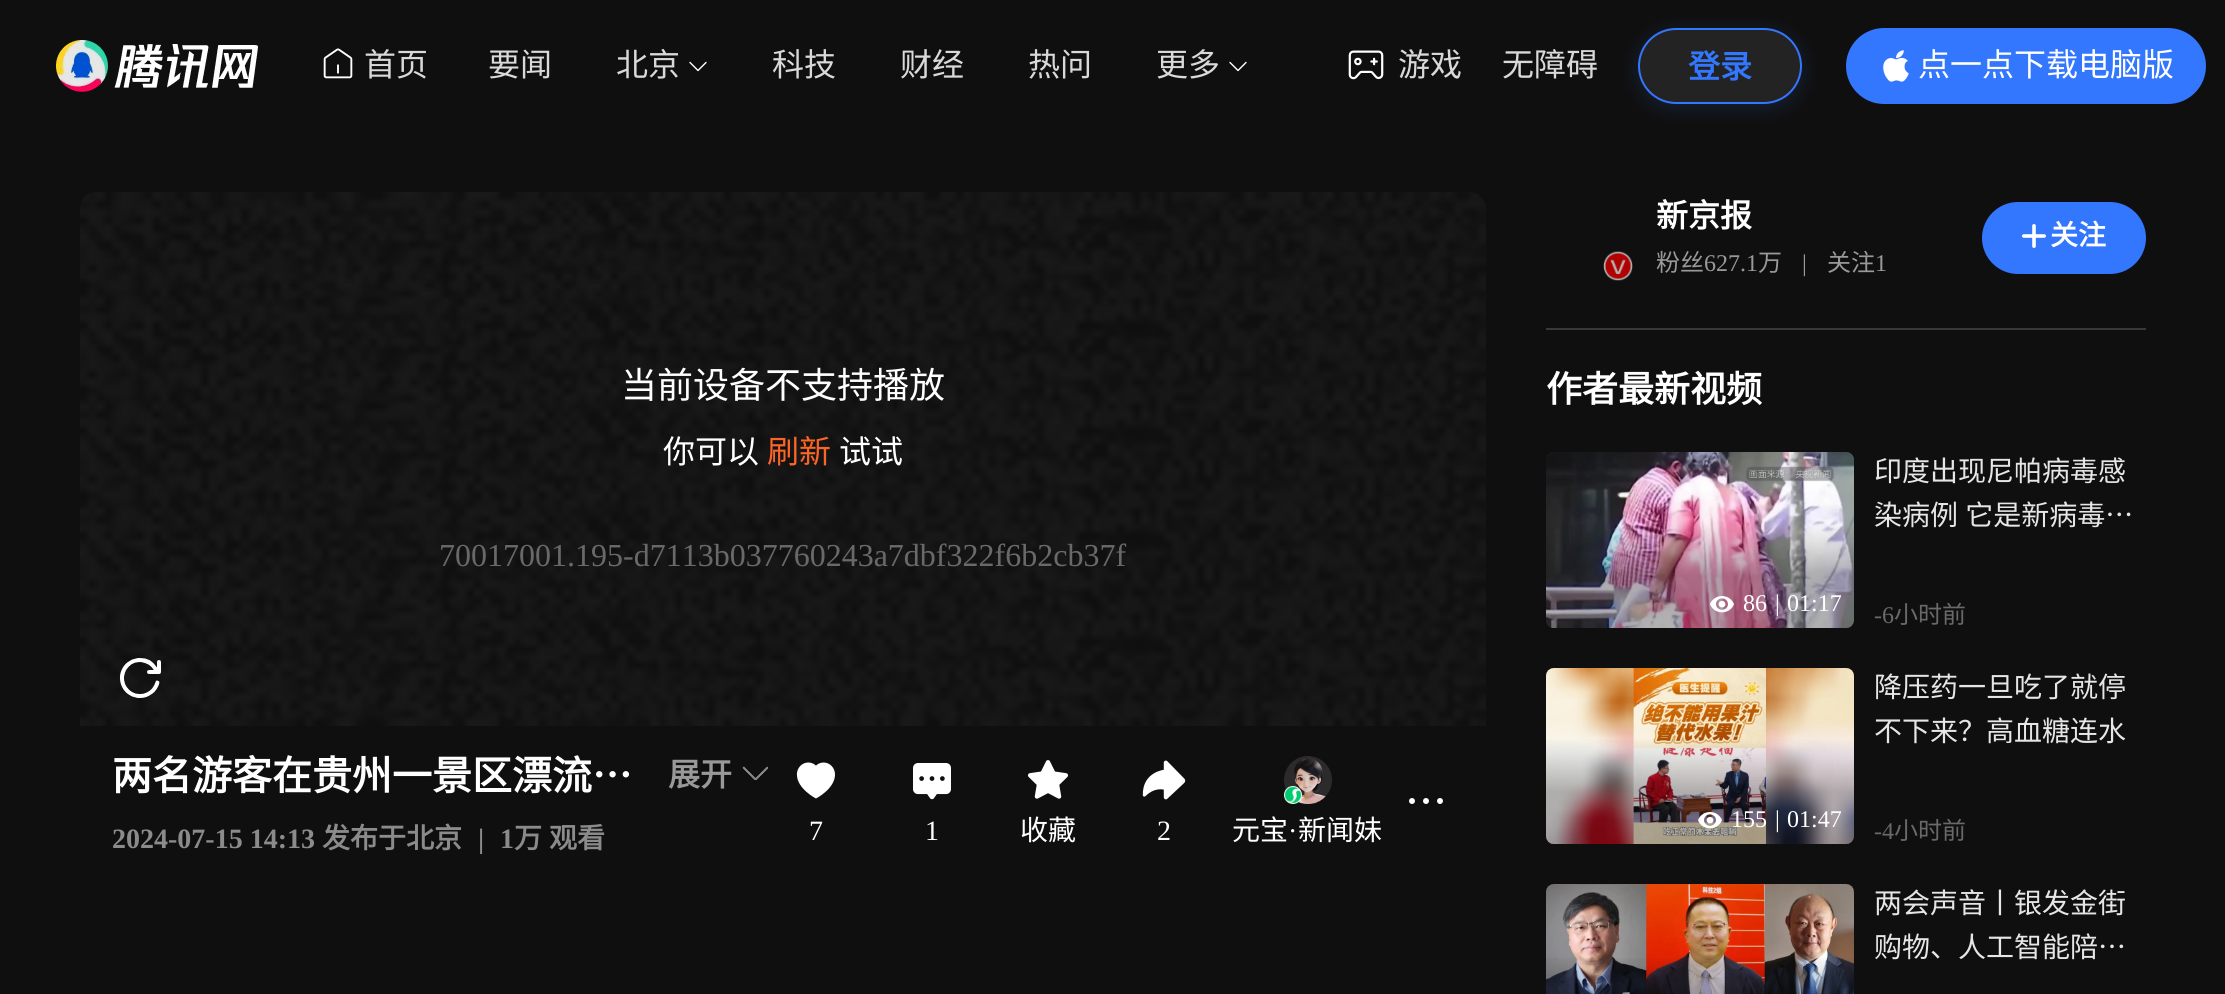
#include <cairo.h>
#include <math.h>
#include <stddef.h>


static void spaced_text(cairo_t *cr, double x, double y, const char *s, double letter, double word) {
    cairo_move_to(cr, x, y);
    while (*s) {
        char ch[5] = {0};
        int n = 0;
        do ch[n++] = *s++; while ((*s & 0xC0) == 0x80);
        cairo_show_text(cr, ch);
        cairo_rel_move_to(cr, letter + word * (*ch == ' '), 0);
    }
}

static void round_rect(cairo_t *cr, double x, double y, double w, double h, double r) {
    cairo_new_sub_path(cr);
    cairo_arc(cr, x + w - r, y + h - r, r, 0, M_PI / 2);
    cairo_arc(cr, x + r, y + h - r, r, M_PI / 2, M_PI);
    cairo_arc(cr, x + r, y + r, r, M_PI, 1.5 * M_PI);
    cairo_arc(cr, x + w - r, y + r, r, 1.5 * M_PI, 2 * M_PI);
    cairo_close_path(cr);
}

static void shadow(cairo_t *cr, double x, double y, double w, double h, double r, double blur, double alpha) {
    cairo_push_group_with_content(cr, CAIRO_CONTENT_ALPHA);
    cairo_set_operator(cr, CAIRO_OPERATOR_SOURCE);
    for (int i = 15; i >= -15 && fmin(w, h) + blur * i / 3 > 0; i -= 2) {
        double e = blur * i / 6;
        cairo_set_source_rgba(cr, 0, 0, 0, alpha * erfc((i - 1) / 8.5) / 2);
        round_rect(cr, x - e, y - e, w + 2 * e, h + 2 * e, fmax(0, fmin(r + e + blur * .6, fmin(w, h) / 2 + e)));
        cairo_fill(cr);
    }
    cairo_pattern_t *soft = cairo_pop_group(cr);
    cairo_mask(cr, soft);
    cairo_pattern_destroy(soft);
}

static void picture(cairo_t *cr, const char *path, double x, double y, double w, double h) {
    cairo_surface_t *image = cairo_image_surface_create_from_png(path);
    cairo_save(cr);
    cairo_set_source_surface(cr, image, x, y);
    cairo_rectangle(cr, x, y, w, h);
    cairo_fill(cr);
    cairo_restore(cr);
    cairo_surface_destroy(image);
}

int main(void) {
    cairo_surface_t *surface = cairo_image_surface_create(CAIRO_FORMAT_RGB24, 2225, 994);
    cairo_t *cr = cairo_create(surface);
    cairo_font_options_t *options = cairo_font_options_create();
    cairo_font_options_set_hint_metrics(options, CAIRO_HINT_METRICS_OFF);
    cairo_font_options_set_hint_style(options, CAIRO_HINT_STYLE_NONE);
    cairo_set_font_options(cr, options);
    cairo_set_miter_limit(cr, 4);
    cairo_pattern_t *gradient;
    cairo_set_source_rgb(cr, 0.059, 0.059, 0.059);
    cairo_paint(cr);
    picture(cr, "img1.png", 56, 40, 202, 52);
    picture(cr, "img2.png", 323, 48, 30, 31);
    cairo_select_font_face(cr, "Noto Sans CJK SC", CAIRO_FONT_SLANT_NORMAL, CAIRO_FONT_WEIGHT_NORMAL);
    cairo_set_font_size(cr, 32);
    cairo_set_source_rgb(cr, 0.851, 0.851, 0.851);
    cairo_move_to(cr, 364, 76);
    cairo_show_text(cr, "首页");
    cairo_move_to(cr, 488, 76);
    cairo_show_text(cr, "要闻");
    cairo_move_to(cr, 616, 76);
    cairo_show_text(cr, "北京");
    cairo_new_path(cr);
    cairo_move_to(cr, 706, 62.5);
    cairo_line_to(cr, 698, 70.5);
    cairo_line_to(cr, 690, 62.5);
    cairo_set_source_rgb(cr, 1, 1, 1);
    cairo_set_line_width(cr, 1.4);
    cairo_set_line_cap(cr, CAIRO_LINE_CAP_ROUND);
    cairo_set_line_join(cr, CAIRO_LINE_JOIN_ROUND);
    cairo_stroke(cr);
    cairo_set_source_rgb(cr, 0.851, 0.851, 0.851);
    cairo_move_to(cr, 772, 76);
    cairo_show_text(cr, "科技");
    cairo_move_to(cr, 900, 76);
    cairo_show_text(cr, "财经");
    cairo_move_to(cr, 1028, 76);
    cairo_show_text(cr, "热问");
    cairo_move_to(cr, 1156, 76);
    cairo_show_text(cr, "更多");
    cairo_new_path(cr);
    cairo_move_to(cr, 1246, 62.5);
    cairo_line_to(cr, 1238, 70.5);
    cairo_line_to(cr, 1230, 62.5);
    cairo_set_source_rgb(cr, 1, 1, 1);
    cairo_stroke(cr);
    picture(cr, "img3.png", 1348, 50, 36, 30);
    cairo_set_source_rgb(cr, 0.851, 0.851, 0.851);
    cairo_move_to(cr, 1398, 76);
    cairo_show_text(cr, "游戏");
    cairo_move_to(cr, 1502, 76);
    cairo_show_text(cr, "无障碍");
    cairo_save(cr);
    cairo_set_fill_rule(cr, CAIRO_FILL_RULE_EVEN_ODD);
    cairo_new_path(cr);
    cairo_move_to(cr, 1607, 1);
    cairo_line_to(cr, 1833, 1);
    cairo_line_to(cr, 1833, 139);
    cairo_line_to(cr, 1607, 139);
    cairo_close_path(cr);
    cairo_move_to(cr, 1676, 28);
    cairo_line_to(cr, 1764, 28);
    cairo_curve_to(cr, 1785, 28, 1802, 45, 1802, 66);
    cairo_curve_to(cr, 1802, 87, 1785, 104, 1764, 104);
    cairo_line_to(cr, 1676, 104);
    cairo_curve_to(cr, 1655, 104, 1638, 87, 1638, 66);
    cairo_curve_to(cr, 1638, 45, 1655, 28, 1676, 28);
    cairo_close_path(cr);
    cairo_clip(cr);
    cairo_set_source_rgb(cr, 0.2, 0.467, 1);
    shadow(cr, 1638, 32, 164, 76, 38, 10, 0.16);
    cairo_restore(cr);
    cairo_set_source_rgba(cr, 0.851, 0.851, 0.851, 0.1);
    round_rect(cr, 1639, 29, 162, 74, 37);
    cairo_fill_preserve(cr);
    cairo_set_source_rgb(cr, 0.2, 0.467, 1);
    cairo_set_line_width(cr, 2);
    cairo_set_line_cap(cr, CAIRO_LINE_CAP_BUTT);
    cairo_set_line_join(cr, CAIRO_LINE_JOIN_MITER);
    cairo_stroke(cr);
    cairo_select_font_face(cr, "Noto Sans CJK SC", CAIRO_FONT_SLANT_NORMAL, CAIRO_FONT_WEIGHT_BOLD);
    cairo_move_to(cr, 1688, 78);
    cairo_show_text(cr, "登录");
    round_rect(cr, 1846, 28, 360, 76, 38);
    cairo_fill(cr);
    picture(cr, "img4.png", 1883, 50, 26, 32);
    cairo_select_font_face(cr, "Noto Sans CJK SC", CAIRO_FONT_SLANT_NORMAL, CAIRO_FONT_WEIGHT_NORMAL);
    cairo_set_source_rgb(cr, 1, 1, 1);
    cairo_move_to(cr, 1918, 76);
    cairo_show_text(cr, "点一点下载电脑版");
    picture(cr, "img5.png", 80, 192, 1406, 534);
    cairo_set_font_size(cr, 36);
    cairo_move_to(cr, 621, 398);
    cairo_show_text(cr, "当前设备不支持播放");
    cairo_set_font_size(cr, 32);
    cairo_move_to(cr, 663, 463);
    cairo_show_text(cr, "你可以");
    cairo_set_source_rgb(cr, 0.988, 0.396, 0.149);
    cairo_move_to(cr, 767, 463);
    cairo_show_text(cr, "刷新");
    cairo_set_source_rgb(cr, 1, 1, 1);
    cairo_move_to(cr, 839, 463);
    cairo_show_text(cr, "试试");
    cairo_select_font_face(cr, "Liberation Serif", CAIRO_FONT_SLANT_NORMAL, CAIRO_FONT_WEIGHT_NORMAL);
    cairo_set_source_rgb(cr, 0.412, 0.412, 0.412);
    cairo_move_to(cr, 439, 566);
    cairo_show_text(cr, "70017001.195-d7113b037760243a7dbf322f6b2cb37f");
    cairo_select_font_face(cr, "Noto Sans CJK SC", CAIRO_FONT_SLANT_NORMAL, CAIRO_FONT_WEIGHT_BOLD);
    cairo_set_font_size(cr, 40);
    cairo_set_source_rgb(cr, 1, 1, 1);
    cairo_move_to(cr, 112, 790);
    cairo_show_text(cr, "两名游客在贵州一景区漂流…");
    cairo_set_font_size(cr, 32);
    cairo_set_source_rgb(cr, 0.6, 0.6, 0.6);
    cairo_move_to(cr, 668, 786);
    cairo_show_text(cr, "展开");
    picture(cr, "img6.png", 742, 766, 26, 14);
    cairo_select_font_face(cr, "Liberation Serif", CAIRO_FONT_SLANT_NORMAL, CAIRO_FONT_WEIGHT_BOLD);
    cairo_set_font_size(cr, 28);
    cairo_set_source_rgb(cr, 0.545, 0.545, 0.545);
    cairo_move_to(cr, 112, 848);
    cairo_show_text(cr, "2024-07-15 14:13");
    cairo_select_font_face(cr, "Noto Sans CJK SC", CAIRO_FONT_SLANT_NORMAL, CAIRO_FONT_WEIGHT_BOLD);
    cairo_move_to(cr, 322, 848);
    cairo_show_text(cr, "发布于北京");
    cairo_select_font_face(cr, "Liberation Serif", CAIRO_FONT_SLANT_NORMAL, CAIRO_FONT_WEIGHT_BOLD);
    cairo_move_to(cr, 478, 848);
    cairo_show_text(cr, "|");
    cairo_move_to(cr, 500, 848);
    cairo_show_text(cr, "1");
    cairo_select_font_face(cr, "Noto Sans CJK SC", CAIRO_FONT_SLANT_NORMAL, CAIRO_FONT_WEIGHT_BOLD);
    cairo_move_to(cr, 514, 848);
    cairo_show_text(cr, "万");
    cairo_move_to(cr, 549, 848);
    cairo_show_text(cr, "观看");
    picture(cr, "img7.png", 1409, 798, 34, 6);
    picture(cr, "img8.png", 796, 762, 39, 37);
    cairo_select_font_face(cr, "Liberation Serif", CAIRO_FONT_SLANT_NORMAL, CAIRO_FONT_WEIGHT_NORMAL);
    cairo_set_source_rgb(cr, 1, 1, 1);
    cairo_move_to(cr, 809, 840);
    cairo_show_text(cr, "7");
    picture(cr, "img9.png", 913, 763, 38, 37);
    cairo_move_to(cr, 925, 840);
    cairo_show_text(cr, "1");
    picture(cr, "img10.png", 1027, 760, 42, 39);
    cairo_select_font_face(cr, "Noto Sans CJK SC", CAIRO_FONT_SLANT_NORMAL, CAIRO_FONT_WEIGHT_NORMAL);
    cairo_move_to(cr, 1020, 840);
    cairo_show_text(cr, "收藏");
    picture(cr, "img11.png", 1142, 760, 44, 40);
    cairo_select_font_face(cr, "Liberation Serif", CAIRO_FONT_SLANT_NORMAL, CAIRO_FONT_WEIGHT_NORMAL);
    cairo_move_to(cr, 1157, 840);
    cairo_show_text(cr, "2");
    picture(cr, "img12.png", 1284, 756, 48, 48);
    picture(cr, "img13.png", 1284, 786, 18, 18);
    cairo_select_font_face(cr, "Noto Sans CJK SC", CAIRO_FONT_SLANT_NORMAL, CAIRO_FONT_WEIGHT_NORMAL);
    cairo_move_to(cr, 1232, 840);
    cairo_show_text(cr, "元宝");
    cairo_select_font_face(cr, "Liberation Serif", CAIRO_FONT_SLANT_NORMAL, CAIRO_FONT_WEIGHT_NORMAL);
    cairo_move_to(cr, 1288, 840);
    cairo_show_text(cr, "·");
    cairo_select_font_face(cr, "Noto Sans CJK SC", CAIRO_FONT_SLANT_NORMAL, CAIRO_FONT_WEIGHT_NORMAL);
    cairo_move_to(cr, 1298, 840);
    cairo_show_text(cr, "新闻妹");
    cairo_select_font_face(cr, "Noto Sans CJK SC", CAIRO_FONT_SLANT_NORMAL, CAIRO_FONT_WEIGHT_BOLD);
    cairo_set_font_size(cr, 32);
    cairo_move_to(cr, 1656, 227);
    cairo_show_text(cr, "新京报");
    cairo_select_font_face(cr, "Noto Sans CJK SC", CAIRO_FONT_SLANT_NORMAL, CAIRO_FONT_WEIGHT_NORMAL);
    cairo_set_font_size(cr, 24);
    cairo_set_source_rgb(cr, 0.6, 0.6, 0.6);
    cairo_move_to(cr, 1656, 271);
    cairo_show_text(cr, "粉丝");
    cairo_select_font_face(cr, "Liberation Serif", CAIRO_FONT_SLANT_NORMAL, CAIRO_FONT_WEIGHT_NORMAL);
    cairo_move_to(cr, 1704, 271);
    cairo_show_text(cr, "627.1");
    cairo_select_font_face(cr, "Noto Sans CJK SC", CAIRO_FONT_SLANT_NORMAL, CAIRO_FONT_WEIGHT_NORMAL);
    cairo_move_to(cr, 1758, 271);
    cairo_show_text(cr, "万");
    cairo_select_font_face(cr, "Liberation Serif", CAIRO_FONT_SLANT_NORMAL, CAIRO_FONT_WEIGHT_NORMAL);
    cairo_move_to(cr, 1802, 271);
    cairo_show_text(cr, "|");
    cairo_select_font_face(cr, "Noto Sans CJK SC", CAIRO_FONT_SLANT_NORMAL, CAIRO_FONT_WEIGHT_NORMAL);
    cairo_move_to(cr, 1827, 271);
    cairo_show_text(cr, "关注");
    cairo_select_font_face(cr, "Liberation Serif", CAIRO_FONT_SLANT_NORMAL, CAIRO_FONT_WEIGHT_NORMAL);
    cairo_move_to(cr, 1875, 271);
    cairo_show_text(cr, "1");
    cairo_set_source_rgb(cr, 0.2, 0.467, 1);
    round_rect(cr, 1982, 202, 164, 72, 36);
    cairo_fill(cr);
    picture(cr, "img14.png", 2022, 224, 24, 24);
    cairo_select_font_face(cr, "Noto Sans CJK SC", CAIRO_FONT_SLANT_NORMAL, CAIRO_FONT_WEIGHT_BOLD);
    cairo_set_font_size(cr, 28);
    cairo_set_source_rgb(cr, 1, 1, 1);
    cairo_move_to(cr, 2050, 245);
    cairo_show_text(cr, "关注");
    picture(cr, "img15.png", 1603, 251, 30, 30);
    cairo_set_source_rgb(cr, 0.22, 0.22, 0.22);
    cairo_rectangle(cr, 1546, 328, 600, 2);
    cairo_fill(cr);
    cairo_set_font_size(cr, 36);
    cairo_set_source_rgb(cr, 1, 1, 1);
    cairo_move_to(cr, 1546, 402);
    cairo_show_text(cr, "作者最新视频");
    cairo_set_source_rgb(cr, 0.2, 0.2, 0.2);
    round_rect(cr, 1546, 452, 308, 176, 8);
    cairo_fill(cr);
    picture(cr, "img16.png", 1546, 452, 308, 176);
    gradient = cairo_pattern_create_linear(1700, 628, 1700, 452);
    cairo_pattern_add_color_stop_rgba(gradient, 0.3, 0, 0, 0, 0.3);
    cairo_pattern_add_color_stop_rgba(gradient, 0.6, 0, 0, 0, 0);
    cairo_set_source(cr, gradient);
    cairo_pattern_destroy(gradient);
    round_rect(cr, 1546, 452, 308, 176, 8);
    cairo_fill(cr);
    picture(cr, "img17.png", 1710, 596, 24, 17);
    cairo_select_font_face(cr, "Liberation Serif", CAIRO_FONT_SLANT_NORMAL, CAIRO_FONT_WEIGHT_NORMAL);
    cairo_set_font_size(cr, 24);
    cairo_set_source_rgb(cr, 1, 1, 1);
    cairo_move_to(cr, 1743, 611);
    cairo_show_text(cr, "86");
    cairo_move_to(cr, 1775, 611);
    cairo_show_text(cr, "|");
    cairo_move_to(cr, 1787, 611);
    cairo_show_text(cr, "01:17");
    cairo_select_font_face(cr, "Noto Sans CJK SC", CAIRO_FONT_SLANT_NORMAL, CAIRO_FONT_WEIGHT_NORMAL);
    cairo_set_font_size(cr, 28);
    cairo_set_source_rgb(cr, 0.902, 0.902, 0.902);
    cairo_move_to(cr, 1874, 481);
    cairo_show_text(cr, "印度出现尼帕病毒感");
    spaced_text(cr, 1874, 525, "染病例 它是新病毒…", 0, 1);
    cairo_select_font_face(cr, "Liberation Serif", CAIRO_FONT_SLANT_NORMAL, CAIRO_FONT_WEIGHT_NORMAL);
    cairo_set_font_size(cr, 24);
    cairo_set_source_rgb(cr, 0.412, 0.412, 0.412);
    cairo_move_to(cr, 1874, 623);
    cairo_show_text(cr, "-6");
    cairo_select_font_face(cr, "Noto Sans CJK SC", CAIRO_FONT_SLANT_NORMAL, CAIRO_FONT_WEIGHT_NORMAL);
    cairo_move_to(cr, 1894, 623);
    cairo_show_text(cr, "小时前");
    cairo_set_source_rgb(cr, 0.2, 0.2, 0.2);
    round_rect(cr, 1546, 668, 308, 176, 8);
    cairo_fill(cr);
    picture(cr, "img18.png", 1546, 668, 308, 176);
    gradient = cairo_pattern_create_linear(1700, 844, 1700, 668);
    cairo_pattern_add_color_stop_rgba(gradient, 0.3, 0, 0, 0, 0.3);
    cairo_pattern_add_color_stop_rgba(gradient, 0.6, 0, 0, 0, 0);
    cairo_set_source(cr, gradient);
    cairo_pattern_destroy(gradient);
    round_rect(cr, 1546, 668, 308, 176, 8);
    cairo_fill(cr);
    picture(cr, "img19.png", 1698, 812, 24, 17);
    cairo_select_font_face(cr, "Liberation Serif", CAIRO_FONT_SLANT_NORMAL, CAIRO_FONT_WEIGHT_NORMAL);
    cairo_set_source_rgb(cr, 1, 1, 1);
    cairo_move_to(cr, 1731, 827);
    cairo_show_text(cr, "155");
    cairo_move_to(cr, 1775, 827);
    cairo_show_text(cr, "|");
    cairo_move_to(cr, 1787, 827);
    cairo_show_text(cr, "01:47");
    cairo_select_font_face(cr, "Noto Sans CJK SC", CAIRO_FONT_SLANT_NORMAL, CAIRO_FONT_WEIGHT_NORMAL);
    cairo_set_font_size(cr, 28);
    cairo_set_source_rgb(cr, 0.902, 0.902, 0.902);
    cairo_move_to(cr, 1874, 697);
    cairo_show_text(cr, "降压药一旦吃了就停");
    cairo_move_to(cr, 1874, 741);
    cairo_show_text(cr, "不下来？高血糖连水");
    cairo_select_font_face(cr, "Liberation Serif", CAIRO_FONT_SLANT_NORMAL, CAIRO_FONT_WEIGHT_NORMAL);
    cairo_set_font_size(cr, 24);
    cairo_set_source_rgb(cr, 0.412, 0.412, 0.412);
    cairo_move_to(cr, 1874, 839);
    cairo_show_text(cr, "-4");
    cairo_select_font_face(cr, "Noto Sans CJK SC", CAIRO_FONT_SLANT_NORMAL, CAIRO_FONT_WEIGHT_NORMAL);
    cairo_move_to(cr, 1894, 839);
    cairo_show_text(cr, "小时前");
    picture(cr, "img20.png", 1546, 884, 308, 110);
    gradient = cairo_pattern_create_linear(1700, 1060, 1700, 884);
    cairo_pattern_add_color_stop_rgba(gradient, 0.3, 0, 0, 0, 0.3);
    cairo_pattern_add_color_stop_rgba(gradient, 0.6, 0, 0, 0, 0);
    cairo_set_source(cr, gradient);
    cairo_pattern_destroy(gradient);
    cairo_rectangle(cr, 1546, 958, 308, 36);
    cairo_fill(cr);
    cairo_set_font_size(cr, 28);
    cairo_set_source_rgb(cr, 0.902, 0.902, 0.902);
    cairo_move_to(cr, 1874, 913);
    cairo_show_text(cr, "两会声音丨银发金街");
    cairo_move_to(cr, 1874, 957);
    cairo_show_text(cr, "购物、人工智能陪…");
    cairo_surface_write_to_png(surface, "page.png");
    cairo_font_options_destroy(options);
    cairo_destroy(cr);
    cairo_surface_destroy(surface);
    return 0;
}
